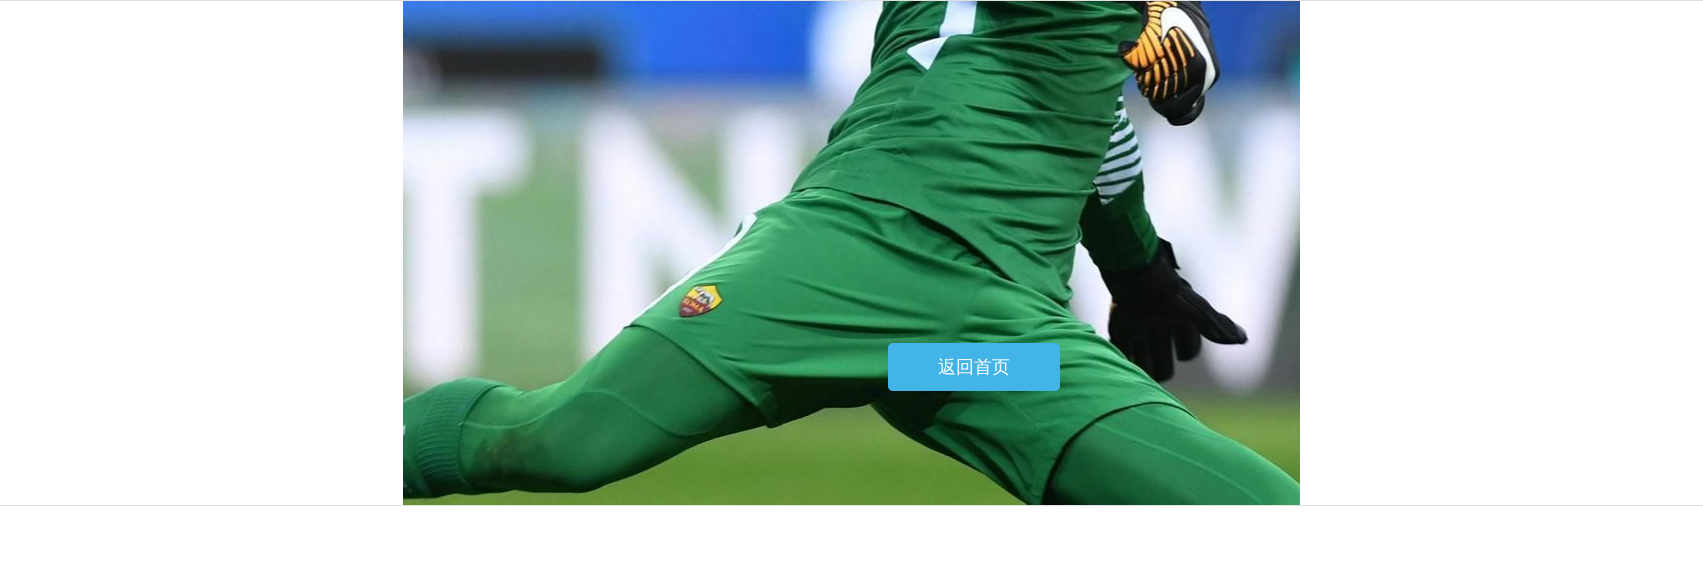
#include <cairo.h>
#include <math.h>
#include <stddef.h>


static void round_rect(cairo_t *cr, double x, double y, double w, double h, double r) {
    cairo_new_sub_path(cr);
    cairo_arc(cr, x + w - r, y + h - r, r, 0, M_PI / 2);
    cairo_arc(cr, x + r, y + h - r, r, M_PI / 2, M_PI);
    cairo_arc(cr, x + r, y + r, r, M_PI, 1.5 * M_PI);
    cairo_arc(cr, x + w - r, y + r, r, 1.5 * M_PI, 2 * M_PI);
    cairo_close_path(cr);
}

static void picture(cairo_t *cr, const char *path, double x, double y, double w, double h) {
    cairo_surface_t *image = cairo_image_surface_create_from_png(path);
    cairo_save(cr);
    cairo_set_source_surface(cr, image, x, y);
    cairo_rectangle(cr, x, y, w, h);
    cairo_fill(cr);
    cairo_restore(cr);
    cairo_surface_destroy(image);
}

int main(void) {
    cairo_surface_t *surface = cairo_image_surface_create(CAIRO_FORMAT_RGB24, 1703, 565);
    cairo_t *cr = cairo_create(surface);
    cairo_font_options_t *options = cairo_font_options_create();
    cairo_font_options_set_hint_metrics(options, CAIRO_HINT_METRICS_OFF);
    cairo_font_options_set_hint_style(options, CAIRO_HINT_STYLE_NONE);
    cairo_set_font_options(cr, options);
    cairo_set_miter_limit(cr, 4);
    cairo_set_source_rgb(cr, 1, 1, 1);
    cairo_paint(cr);
    cairo_set_source_rgb(cr, 0.878, 0.878, 0.878);
    cairo_rectangle(cr, 0, 0, 1703, 1);
    cairo_fill(cr);
    cairo_rectangle(cr, 0, 505, 1703, 1);
    cairo_fill(cr);
    picture(cr, "img1.png", 403, 1, 897, 504);
    cairo_set_source_rgb(cr, 0.263, 0.706, 0.91);
    round_rect(cr, 888, 343, 172, 48, 5);
    cairo_fill(cr);
    cairo_select_font_face(cr, "WenQuanYi Zen Hei Medium", CAIRO_FONT_SLANT_NORMAL, CAIRO_FONT_WEIGHT_NORMAL);
    cairo_set_font_size(cr, 18);
    cairo_set_source_rgb(cr, 1, 1, 1);
    cairo_move_to(cr, 938, 373);
    cairo_show_text(cr, "返回首页");
    cairo_surface_write_to_png(surface, "page.png");
    cairo_font_options_destroy(options);
    cairo_destroy(cr);
    cairo_surface_destroy(surface);
    return 0;
}
